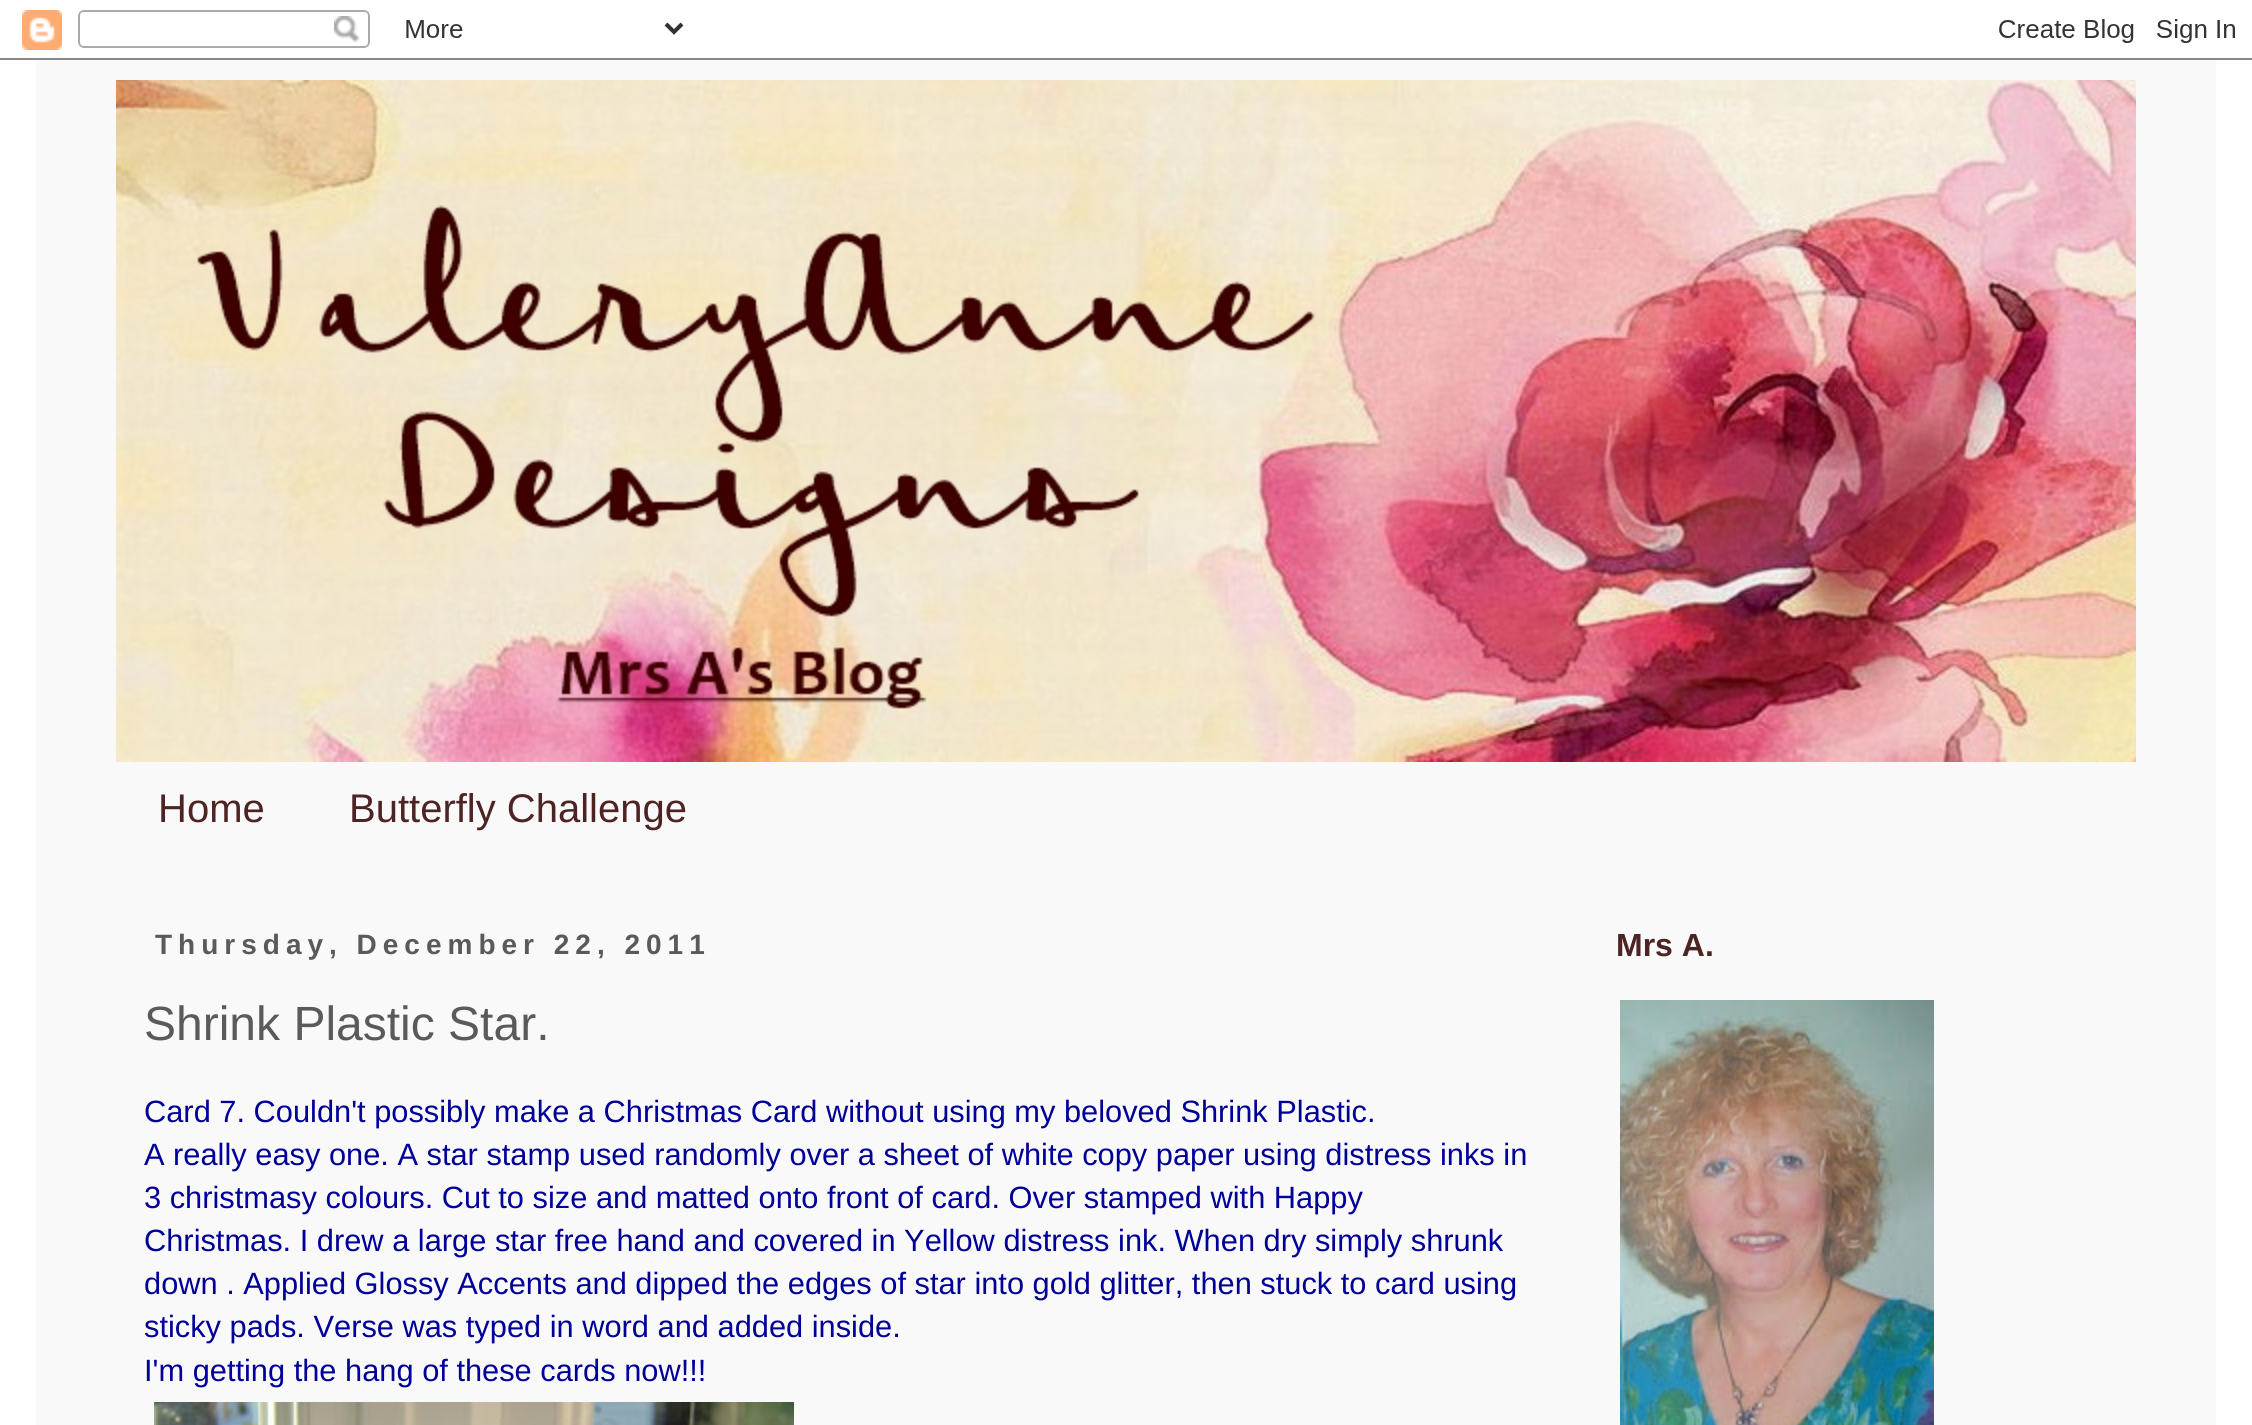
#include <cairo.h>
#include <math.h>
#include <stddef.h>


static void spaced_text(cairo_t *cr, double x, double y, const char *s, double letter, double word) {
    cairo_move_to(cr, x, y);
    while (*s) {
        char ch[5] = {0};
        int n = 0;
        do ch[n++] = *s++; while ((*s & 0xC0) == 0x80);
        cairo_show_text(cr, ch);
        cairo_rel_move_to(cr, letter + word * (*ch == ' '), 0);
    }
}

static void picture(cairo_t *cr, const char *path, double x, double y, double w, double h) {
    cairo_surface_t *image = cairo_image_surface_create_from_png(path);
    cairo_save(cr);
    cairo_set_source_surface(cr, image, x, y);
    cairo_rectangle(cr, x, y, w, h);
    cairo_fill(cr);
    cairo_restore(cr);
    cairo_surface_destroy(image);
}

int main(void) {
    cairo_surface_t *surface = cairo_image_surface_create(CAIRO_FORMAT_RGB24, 2252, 1425);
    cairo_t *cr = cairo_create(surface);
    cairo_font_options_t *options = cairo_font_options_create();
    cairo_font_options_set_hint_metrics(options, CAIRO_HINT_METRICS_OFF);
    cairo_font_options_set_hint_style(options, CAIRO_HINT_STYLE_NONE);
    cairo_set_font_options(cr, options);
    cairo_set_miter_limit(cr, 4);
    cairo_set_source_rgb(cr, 1, 1, 1);
    cairo_paint(cr);
    picture(cr, "img1.png", 0, 10, 2252, 50);
    cairo_set_source_rgb(cr, 0.98, 0.976, 0.973);
    cairo_rectangle(cr, 36, 60, 2180, 1365);
    cairo_fill(cr);
    picture(cr, "img2.png", 116, 80, 2020, 682);
    cairo_select_font_face(cr, "Liberation Sans", CAIRO_FONT_SLANT_NORMAL, CAIRO_FONT_WEIGHT_NORMAL);
    cairo_set_font_size(cr, 40);
    cairo_set_source_rgb(cr, 0.306, 0.137, 0.137);
    cairo_move_to(cr, 158, 822);
    cairo_show_text(cr, "Home");
    cairo_move_to(cr, 349, 822);
    cairo_show_text(cr, "Butterfly Challenge");
    cairo_select_font_face(cr, "Liberation Sans", CAIRO_FONT_SLANT_NORMAL, CAIRO_FONT_WEIGHT_BOLD);
    cairo_set_font_size(cr, 28);
    cairo_set_source_rgb(cr, 0.353, 0.353, 0.353);
    spaced_text(cr, 155, 954, "Thursday, December 22, 2011", 6, 0);
    cairo_select_font_face(cr, "Liberation Sans", CAIRO_FONT_SLANT_NORMAL, CAIRO_FONT_WEIGHT_NORMAL);
    cairo_set_font_size(cr, 48);
    cairo_move_to(cr, 144, 1040);
    cairo_show_text(cr, "Shrink Plastic Star.");
    cairo_set_font_size(cr, 30.8);
    cairo_set_source_rgb(cr, 0, 0, 0.6);
    cairo_move_to(cr, 144, 1122);
    cairo_show_text(cr, "Card 7. Couldn't possibly make a Christmas Card without using my beloved Shrink Plastic.");
    cairo_move_to(cr, 144, 1165);
    cairo_show_text(cr, "A really easy one. A star stamp used randomly over a sheet of white copy paper using distress inks in");
    cairo_move_to(cr, 144, 1208);
    cairo_show_text(cr, "3 christmasy colours. Cut to size and matted onto front of card. Over stamped with Happy");
    cairo_move_to(cr, 144, 1251);
    cairo_show_text(cr, "Christmas. I drew a large star free hand and covered in Yellow distress ink. When dry simply shrunk");
    cairo_move_to(cr, 144, 1294);
    cairo_show_text(cr, "down . Applied Glossy Accents and dipped the edges of star into gold glitter, then stuck to card using");
    cairo_move_to(cr, 144, 1337);
    cairo_show_text(cr, "sticky pads. Verse was typed in word and added inside.");
    cairo_move_to(cr, 144, 1381);
    cairo_show_text(cr, "I'm getting the hang of these cards now!!!");
    picture(cr, "img3.png", 154, 1402, 640, 23);
    cairo_select_font_face(cr, "Liberation Sans", CAIRO_FONT_SLANT_NORMAL, CAIRO_FONT_WEIGHT_BOLD);
    cairo_set_font_size(cr, 32);
    cairo_set_source_rgb(cr, 0.306, 0.137, 0.137);
    cairo_move_to(cr, 1616, 956);
    cairo_show_text(cr, "Mrs A.");
    picture(cr, "img4.png", 1620, 1000, 314, 425);
    cairo_surface_write_to_png(surface, "page.png");
    cairo_font_options_destroy(options);
    cairo_destroy(cr);
    cairo_surface_destroy(surface);
    return 0;
}
